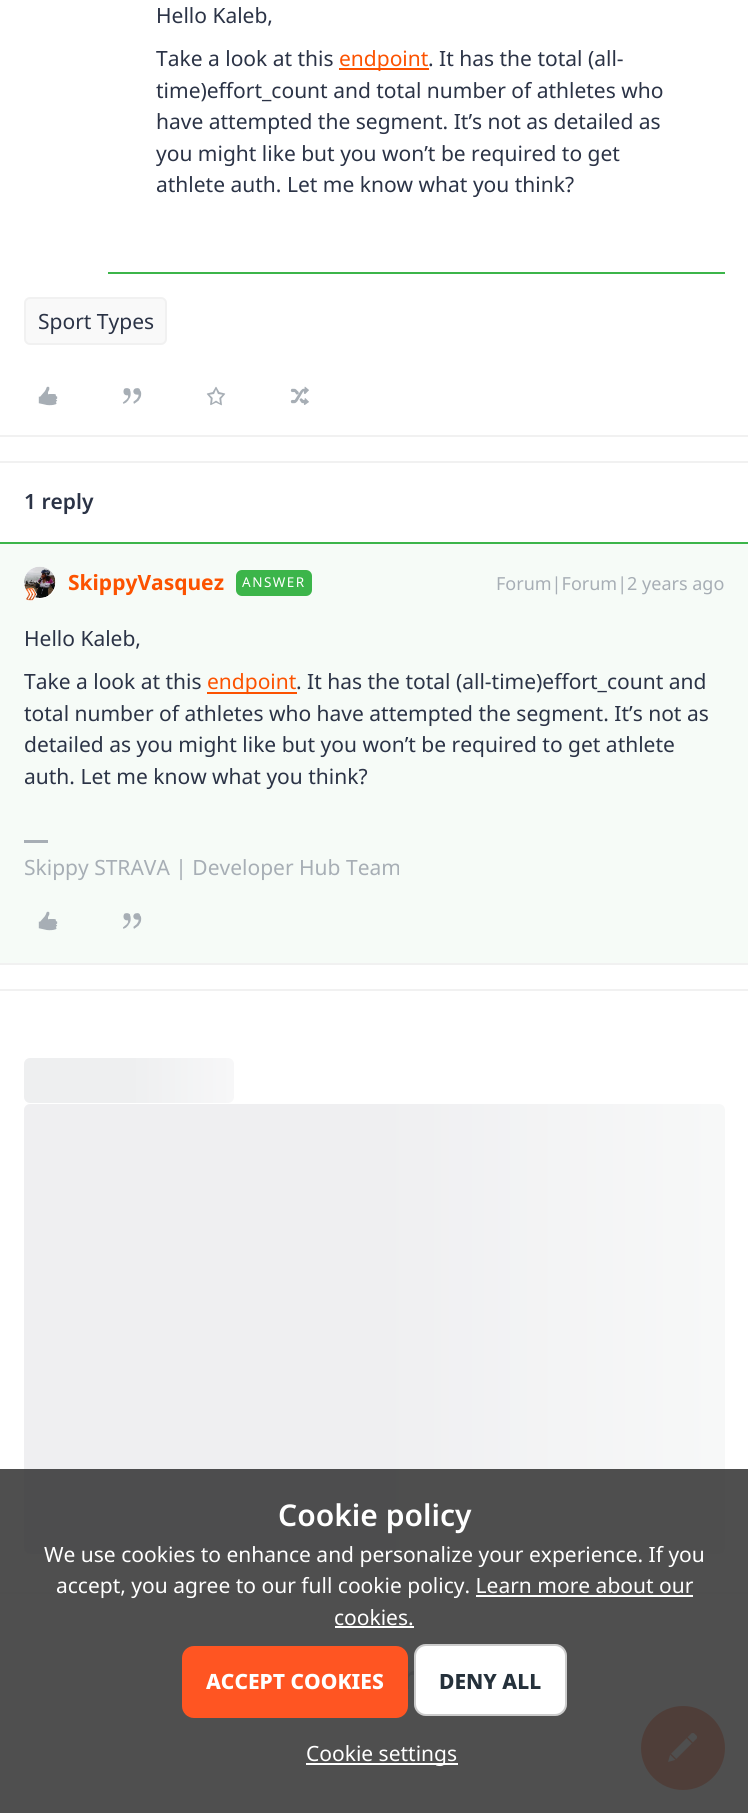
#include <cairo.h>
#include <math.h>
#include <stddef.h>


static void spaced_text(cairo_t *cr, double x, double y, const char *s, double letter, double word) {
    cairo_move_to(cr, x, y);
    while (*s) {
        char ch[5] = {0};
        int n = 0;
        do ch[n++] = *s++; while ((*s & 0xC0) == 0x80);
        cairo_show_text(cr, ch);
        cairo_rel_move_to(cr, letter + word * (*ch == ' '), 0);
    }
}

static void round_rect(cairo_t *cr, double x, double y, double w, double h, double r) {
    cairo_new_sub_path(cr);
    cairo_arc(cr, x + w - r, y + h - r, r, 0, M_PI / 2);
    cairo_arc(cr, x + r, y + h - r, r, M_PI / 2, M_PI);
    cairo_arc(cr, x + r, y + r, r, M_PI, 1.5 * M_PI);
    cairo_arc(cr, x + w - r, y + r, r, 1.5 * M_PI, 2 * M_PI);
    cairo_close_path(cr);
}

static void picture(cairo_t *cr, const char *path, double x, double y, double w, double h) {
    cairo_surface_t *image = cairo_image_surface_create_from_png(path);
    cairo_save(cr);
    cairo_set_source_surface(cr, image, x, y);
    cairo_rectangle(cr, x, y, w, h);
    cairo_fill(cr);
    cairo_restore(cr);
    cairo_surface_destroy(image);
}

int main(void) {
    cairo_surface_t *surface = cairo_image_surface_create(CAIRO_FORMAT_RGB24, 748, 1813);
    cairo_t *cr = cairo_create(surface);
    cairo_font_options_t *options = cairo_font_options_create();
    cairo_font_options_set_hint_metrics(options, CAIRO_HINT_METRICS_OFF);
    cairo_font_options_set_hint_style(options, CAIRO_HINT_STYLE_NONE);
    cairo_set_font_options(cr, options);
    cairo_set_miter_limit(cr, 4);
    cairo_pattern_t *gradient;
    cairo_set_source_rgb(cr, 1, 1, 1);
    cairo_paint(cr);
    cairo_set_source_rgb(cr, 0.961, 0.984, 0.965);
    cairo_rectangle(cr, 0, 544, 748, 419);
    cairo_fill(cr);
    cairo_set_source_rgb(cr, 0.945, 0.945, 0.945);
    cairo_rectangle(cr, 0, 435, 748, 2);
    cairo_fill(cr);
    cairo_set_source_rgb(cr, 0.235, 0.71, 0.29);
    cairo_rectangle(cr, 108, 272, 617, 2);
    cairo_fill(cr);
    cairo_select_font_face(cr, "Noto Sans", CAIRO_FONT_SLANT_NORMAL, CAIRO_FONT_WEIGHT_NORMAL);
    cairo_set_font_size(cr, 21);
    cairo_set_source_rgb(cr, 0.169, 0.2, 0.275);
    cairo_move_to(cr, 156, 23);
    cairo_show_text(cr, "Hello Kaleb,");
    cairo_move_to(cr, 156, 66);
    cairo_show_text(cr, "Take a look at this");
    cairo_set_source_rgb(cr, 0.988, 0.322, 0);
    cairo_rectangle(cr, 339, 68, 90, 2);
    cairo_fill(cr);
    cairo_move_to(cr, 339, 66);
    cairo_show_text(cr, "endpoint");
    cairo_set_source_rgb(cr, 0.169, 0.2, 0.275);
    cairo_move_to(cr, 428, 66);
    cairo_show_text(cr, ". It has the total (all-");
    cairo_move_to(cr, 156, 98);
    cairo_show_text(cr, "time)effort_count and total number of athletes who");
    cairo_move_to(cr, 156, 129);
    cairo_show_text(cr, "have attempted the segment. It’s not as detailed as");
    cairo_move_to(cr, 156, 161);
    cairo_show_text(cr, "you might like but you won’t be required to get");
    cairo_move_to(cr, 156, 192);
    cairo_show_text(cr, "athlete auth. Let me know what you think?");
    cairo_set_source_rgb(cr, 0.973, 0.973, 0.973);
    round_rect(cr, 25, 298, 141, 46, 5);
    cairo_fill_preserve(cr);
    cairo_set_source_rgb(cr, 0.945, 0.945, 0.945);
    cairo_stroke(cr);
    cairo_set_source_rgb(cr, 0.169, 0.2, 0.275);
    cairo_move_to(cr, 38, 329);
    cairo_show_text(cr, "Sport Types");
    picture(cr, "img1.png", 38, 386, 20, 20);
    picture(cr, "img2.png", 122, 388, 20, 16);
    picture(cr, "img3.png", 206, 386, 20, 20);
    picture(cr, "img4.png", 290, 386, 19, 19);
    cairo_set_source_rgb(cr, 0.945, 0.945, 0.945);
    cairo_rectangle(cr, 0, 461, 748, 2);
    cairo_fill(cr);
    cairo_rectangle(cr, 0, 963, 748, 2);
    cairo_fill(cr);
    cairo_select_font_face(cr, "Noto Sans SemiBold", CAIRO_FONT_SLANT_NORMAL, CAIRO_FONT_WEIGHT_NORMAL);
    cairo_set_source_rgb(cr, 0.169, 0.2, 0.275);
    cairo_move_to(cr, 24, 509);
    cairo_show_text(cr, "1 reply");
    cairo_set_source_rgb(cr, 0.235, 0.71, 0.29);
    cairo_rectangle(cr, 0, 542, 748, 2);
    cairo_fill(cr);
    cairo_set_source_rgb(cr, 1, 1, 1);
    cairo_arc(cr, 40, 583, 16, 0, 2 * M_PI);
    cairo_fill(cr);
    picture(cr, "img5.png", 24, 566, 32, 32);
    picture(cr, "img6.png", 26, 587, 12, 14);
    cairo_select_font_face(cr, "Noto Sans", CAIRO_FONT_SLANT_NORMAL, CAIRO_FONT_WEIGHT_BOLD);
    cairo_set_source_rgb(cr, 0.988, 0.322, 0);
    cairo_move_to(cr, 68, 590);
    cairo_show_text(cr, "SkippyVasquez");
    cairo_set_source_rgb(cr, 0.235, 0.71, 0.29);
    round_rect(cr, 236, 570, 76, 26, 6);
    cairo_fill(cr);
    cairo_select_font_face(cr, "Noto Sans", CAIRO_FONT_SLANT_NORMAL, CAIRO_FONT_WEIGHT_NORMAL);
    cairo_set_font_size(cr, 13.5);
    cairo_set_source_rgb(cr, 1, 1, 1);
    spaced_text(cr, 242, 587, "ANSWER", 1.5, 0);
    cairo_set_font_size(cr, 18);
    cairo_set_source_rgb(cr, 0.655, 0.682, 0.71);
    cairo_move_to(cr, 496, 590);
    cairo_show_text(cr, "Forum|Forum|2 years ago");
    cairo_set_font_size(cr, 21);
    cairo_set_source_rgb(cr, 0.169, 0.2, 0.275);
    cairo_move_to(cr, 24, 646);
    cairo_show_text(cr, "Hello Kaleb,");
    cairo_move_to(cr, 24, 689);
    cairo_show_text(cr, "Take a look at this");
    cairo_set_source_rgb(cr, 0.988, 0.322, 0);
    cairo_rectangle(cr, 207, 692, 90, 2);
    cairo_fill(cr);
    cairo_move_to(cr, 207, 689);
    cairo_show_text(cr, "endpoint");
    cairo_set_source_rgb(cr, 0.169, 0.2, 0.275);
    cairo_move_to(cr, 296, 689);
    cairo_show_text(cr, ". It has the total (all-time)effort_count and");
    cairo_move_to(cr, 24, 721);
    cairo_show_text(cr, "total number of athletes who have attempted the segment. It’s not as");
    cairo_move_to(cr, 24, 752);
    cairo_show_text(cr, "detailed as you might like but you won’t be required to get athlete");
    cairo_move_to(cr, 24, 784);
    cairo_show_text(cr, "auth. Let me know what you think?");
    cairo_set_source_rgb(cr, 0.655, 0.682, 0.71);
    cairo_rectangle(cr, 24, 840, 24, 3);
    cairo_fill(cr);
    cairo_move_to(cr, 24, 875);
    cairo_show_text(cr, "Skippy STRAVA | Developer Hub Team");
    picture(cr, "img7.png", 38, 911, 20, 20);
    picture(cr, "img8.png", 123, 913, 19, 16);
    cairo_set_source_rgb(cr, 0.945, 0.945, 0.945);
    cairo_rectangle(cr, 0, 989, 748, 2);
    cairo_fill(cr);
    cairo_rectangle(cr, 0, 1592, 748, 2);
    cairo_fill(cr);
    gradient = cairo_pattern_create_linear(24, 1080, 444, 1080);
    cairo_pattern_add_color_stop_rgba(gradient, 0.25, 0.933, 0.937, 0.941, 1);
    cairo_pattern_add_color_stop_rgba(gradient, 0.5, 0.969, 0.969, 0.973, 1);
    cairo_pattern_add_color_stop_rgba(gradient, 0.75, 0.933, 0.937, 0.941, 1);
    cairo_set_source(cr, gradient);
    cairo_pattern_destroy(gradient);
    round_rect(cr, 24, 1058, 210, 45, 6);
    cairo_fill(cr);
    gradient = cairo_pattern_create_linear(24, 1329, 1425, 1329);
    cairo_pattern_add_color_stop_rgba(gradient, 0.25, 0.937, 0.937, 0.945, 1);
    cairo_pattern_add_color_stop_rgba(gradient, 0.5, 0.969, 0.973, 0.973, 1);
    cairo_pattern_add_color_stop_rgba(gradient, 0.75, 0.937, 0.937, 0.945, 1);
    cairo_set_source(cr, gradient);
    cairo_pattern_destroy(gradient);
    round_rect(cr, 24, 1104, 701, 450, 6);
    cairo_fill(cr);
    picture(cr, "img9.png", 408, 1671, 6, 18);
    cairo_set_source_rgb(cr, 1, 0.333, 0.133);
    cairo_arc(cr, 683, 1748, 42, 0, 2 * M_PI);
    cairo_fill(cr);
    picture(cr, "img10.png", 668, 1733, 29, 29);
    cairo_set_source_rgba(cr, 0.235, 0.235, 0.235, 0.9);
    cairo_rectangle(cr, 0, 1469, 748, 344);
    cairo_fill(cr);
    cairo_select_font_face(cr, "Noto Sans SemiBold", CAIRO_FONT_SLANT_NORMAL, CAIRO_FONT_WEIGHT_NORMAL);
    cairo_set_font_size(cr, 30);
    cairo_set_source_rgb(cr, 1, 1, 1);
    cairo_move_to(cr, 278, 1526);
    cairo_show_text(cr, "Cookie policy");
    cairo_select_font_face(cr, "Noto Sans", CAIRO_FONT_SLANT_NORMAL, CAIRO_FONT_WEIGHT_NORMAL);
    cairo_set_font_size(cr, 21);
    cairo_move_to(cr, 44, 1562);
    cairo_show_text(cr, "We use cookies to enhance and personalize your experience. If you");
    cairo_move_to(cr, 56, 1593);
    cairo_show_text(cr, "accept, you agree to our full cookie policy. Learn more about our");
    cairo_rectangle(cr, 476, 1595, 217, 2);
    cairo_fill(cr);
    cairo_move_to(cr, 334, 1625);
    cairo_show_text(cr, "cookies.");
    cairo_rectangle(cr, 335, 1626, 79, 2);
    cairo_fill(cr);
    cairo_set_source_rgb(cr, 1, 0.333, 0.133);
    round_rect(cr, 182, 1646, 226, 72, 12);
    cairo_fill(cr);
    cairo_select_font_face(cr, "Noto Sans ExtraBold", CAIRO_FONT_SLANT_NORMAL, CAIRO_FONT_WEIGHT_NORMAL);
    cairo_set_source_rgb(cr, 1, 1, 1);
    cairo_move_to(cr, 206, 1689);
    cairo_show_text(cr, "ACCEPT COOKIES");
    round_rect(cr, 414, 1644, 153, 72, 12);
    cairo_fill(cr);
    round_rect(cr, 415, 1645, 151, 70, 11);
    cairo_set_source_rgba(cr, 0, 0, 0, 0.2);
    cairo_stroke(cr);
    cairo_set_source_rgb(cr, 0.145, 0.192, 0.231);
    cairo_move_to(cr, 439, 1689);
    cairo_show_text(cr, "DENY ALL");
    cairo_set_source_rgb(cr, 1, 1, 1);
    cairo_rectangle(cr, 306, 1763, 152, 2);
    cairo_fill(cr);
    cairo_select_font_face(cr, "Noto Sans", CAIRO_FONT_SLANT_NORMAL, CAIRO_FONT_WEIGHT_NORMAL);
    cairo_move_to(cr, 306, 1761);
    cairo_show_text(cr, "Cookie settings");
    cairo_surface_write_to_png(surface, "page.png");
    cairo_font_options_destroy(options);
    cairo_destroy(cr);
    cairo_surface_destroy(surface);
    return 0;
}
